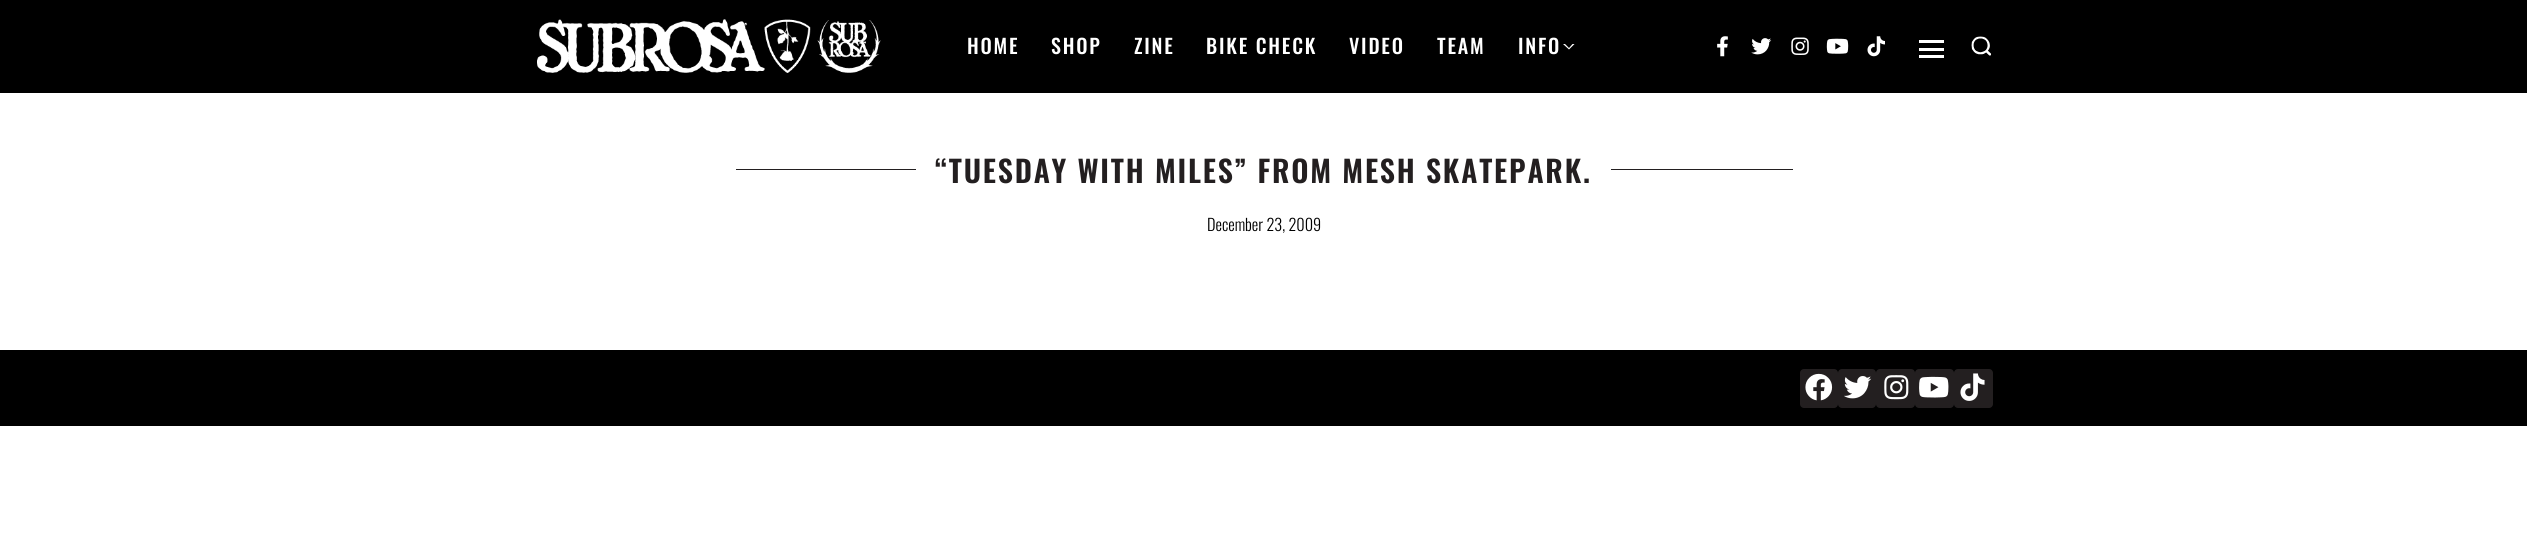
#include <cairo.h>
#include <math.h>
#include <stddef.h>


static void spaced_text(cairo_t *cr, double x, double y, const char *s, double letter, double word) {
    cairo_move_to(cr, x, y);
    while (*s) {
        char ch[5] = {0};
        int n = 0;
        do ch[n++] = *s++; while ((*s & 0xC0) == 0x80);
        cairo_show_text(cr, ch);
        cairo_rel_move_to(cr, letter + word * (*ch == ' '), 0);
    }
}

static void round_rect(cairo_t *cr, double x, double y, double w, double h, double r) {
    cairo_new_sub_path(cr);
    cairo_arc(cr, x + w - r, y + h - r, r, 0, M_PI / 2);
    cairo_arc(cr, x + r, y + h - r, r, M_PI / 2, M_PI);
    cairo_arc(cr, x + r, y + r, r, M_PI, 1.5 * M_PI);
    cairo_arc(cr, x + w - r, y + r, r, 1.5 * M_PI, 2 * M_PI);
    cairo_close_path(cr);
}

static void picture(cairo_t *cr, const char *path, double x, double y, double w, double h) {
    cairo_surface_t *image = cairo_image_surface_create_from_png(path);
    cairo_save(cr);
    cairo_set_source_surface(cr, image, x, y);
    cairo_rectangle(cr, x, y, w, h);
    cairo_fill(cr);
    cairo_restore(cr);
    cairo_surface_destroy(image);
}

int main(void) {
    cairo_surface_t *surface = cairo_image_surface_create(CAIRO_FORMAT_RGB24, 2527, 560);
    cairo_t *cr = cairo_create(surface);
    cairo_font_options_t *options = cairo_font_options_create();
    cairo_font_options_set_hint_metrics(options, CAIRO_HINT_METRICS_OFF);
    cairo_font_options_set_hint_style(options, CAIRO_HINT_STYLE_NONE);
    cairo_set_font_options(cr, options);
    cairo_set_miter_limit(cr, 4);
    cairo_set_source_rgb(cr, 1, 1, 1);
    cairo_paint(cr);
    cairo_set_source_rgb(cr, 0, 0, 0);
    cairo_rectangle(cr, 0, 0, 2527, 93);
    cairo_fill(cr);
    picture(cr, "img1.png", 537, 19, 344, 54);
    cairo_select_font_face(cr, "Oswald Medium", CAIRO_FONT_SLANT_NORMAL, CAIRO_FONT_WEIGHT_NORMAL);
    cairo_set_font_size(cr, 20);
    cairo_set_source_rgb(cr, 1, 1, 1);
    spaced_text(cr, 967, 54, "HOME", 1.8, 0);
    spaced_text(cr, 1051, 54, "SHOP", 1.8, 0);
    spaced_text(cr, 1134, 54, "ZINE", 1.8, 0);
    spaced_text(cr, 1206, 54, "BIKE CHECK", 1.8, 0);
    spaced_text(cr, 1349, 54, "VIDEO", 1.8, 0);
    spaced_text(cr, 1437, 54, "TEAM", 1.8, 0);
    spaced_text(cr, 1518, 54, "INFO", 1.8, 0);
    cairo_new_path(cr);
    cairo_move_to(cr, 1574.5, 44);
    cairo_line_to(cr, 1569, 49.5);
    cairo_line_to(cr, 1569, 48);
    cairo_line_to(cr, 1572.5, 44);
    cairo_close_path(cr);
    cairo_move_to(cr, 1569, 49.5);
    cairo_line_to(cr, 1563, 44);
    cairo_line_to(cr, 1565, 44);
    cairo_line_to(cr, 1569, 48);
    cairo_close_path(cr);
    cairo_fill(cr);
    picture(cr, "img2.png", 1717, 36, 11, 21);
    picture(cr, "img3.png", 1751, 38, 21, 17);
    picture(cr, "img4.png", 1791, 37, 18, 18);
    picture(cr, "img5.png", 1826, 38, 23, 16);
    picture(cr, "img6.png", 1867, 36, 18, 21);
    cairo_rectangle(cr, 1919, 40, 25, 3);
    cairo_fill(cr);
    cairo_rectangle(cr, 1919, 48, 25, 3);
    cairo_fill(cr);
    cairo_rectangle(cr, 1919, 55, 25, 3);
    cairo_fill(cr);
    picture(cr, "img7.png", 1971, 36, 20, 20);
    cairo_set_source_rgb(cr, 0.137, 0.122, 0.125);
    cairo_rectangle(cr, 736, 169, 180, 1);
    cairo_fill(cr);
    cairo_select_font_face(cr, "Oswald SemiBold", CAIRO_FONT_SLANT_NORMAL, CAIRO_FONT_WEIGHT_NORMAL);
    cairo_set_font_size(cr, 30);
    spaced_text(cr, 935, 183, "“TUESDAY WITH MILES” FROM MESH SKATEPARK.", 1.8, 0);
    cairo_rectangle(cr, 1611, 169, 182, 1);
    cairo_fill(cr);
    cairo_select_font_face(cr, "Oswald Light", CAIRO_FONT_SLANT_NORMAL, CAIRO_FONT_WEIGHT_NORMAL);
    cairo_set_font_size(cr, 16.25);
    cairo_set_source_rgb(cr, 0, 0, 0);
    cairo_move_to(cr, 1207, 231);
    cairo_show_text(cr, "December 23, 2009");
    cairo_rectangle(cr, 0, 350, 2527, 76);
    cairo_fill(cr);
    cairo_set_source_rgb(cr, 0.137, 0.122, 0.125);
    round_rect(cr, 1800, 369, 38, 39, 4);
    cairo_fill(cr);
    picture(cr, "img8.png", 1805, 373, 28, 28);
    round_rect(cr, 1838, 369, 38, 39, 4);
    cairo_fill(cr);
    picture(cr, "img9.png", 1844, 376, 28, 23);
    round_rect(cr, 1876, 369, 39, 39, 4);
    cairo_fill(cr);
    picture(cr, "img10.png", 1884, 375, 25, 25);
    round_rect(cr, 1915, 369, 39, 39, 4);
    cairo_fill(cr);
    picture(cr, "img11.png", 1919, 376, 30, 22);
    round_rect(cr, 1954, 369, 39, 39, 4);
    cairo_fill(cr);
    picture(cr, "img12.png", 1960, 373, 25, 28);
    cairo_surface_write_to_png(surface, "page.png");
    cairo_font_options_destroy(options);
    cairo_destroy(cr);
    cairo_surface_destroy(surface);
    return 0;
}
